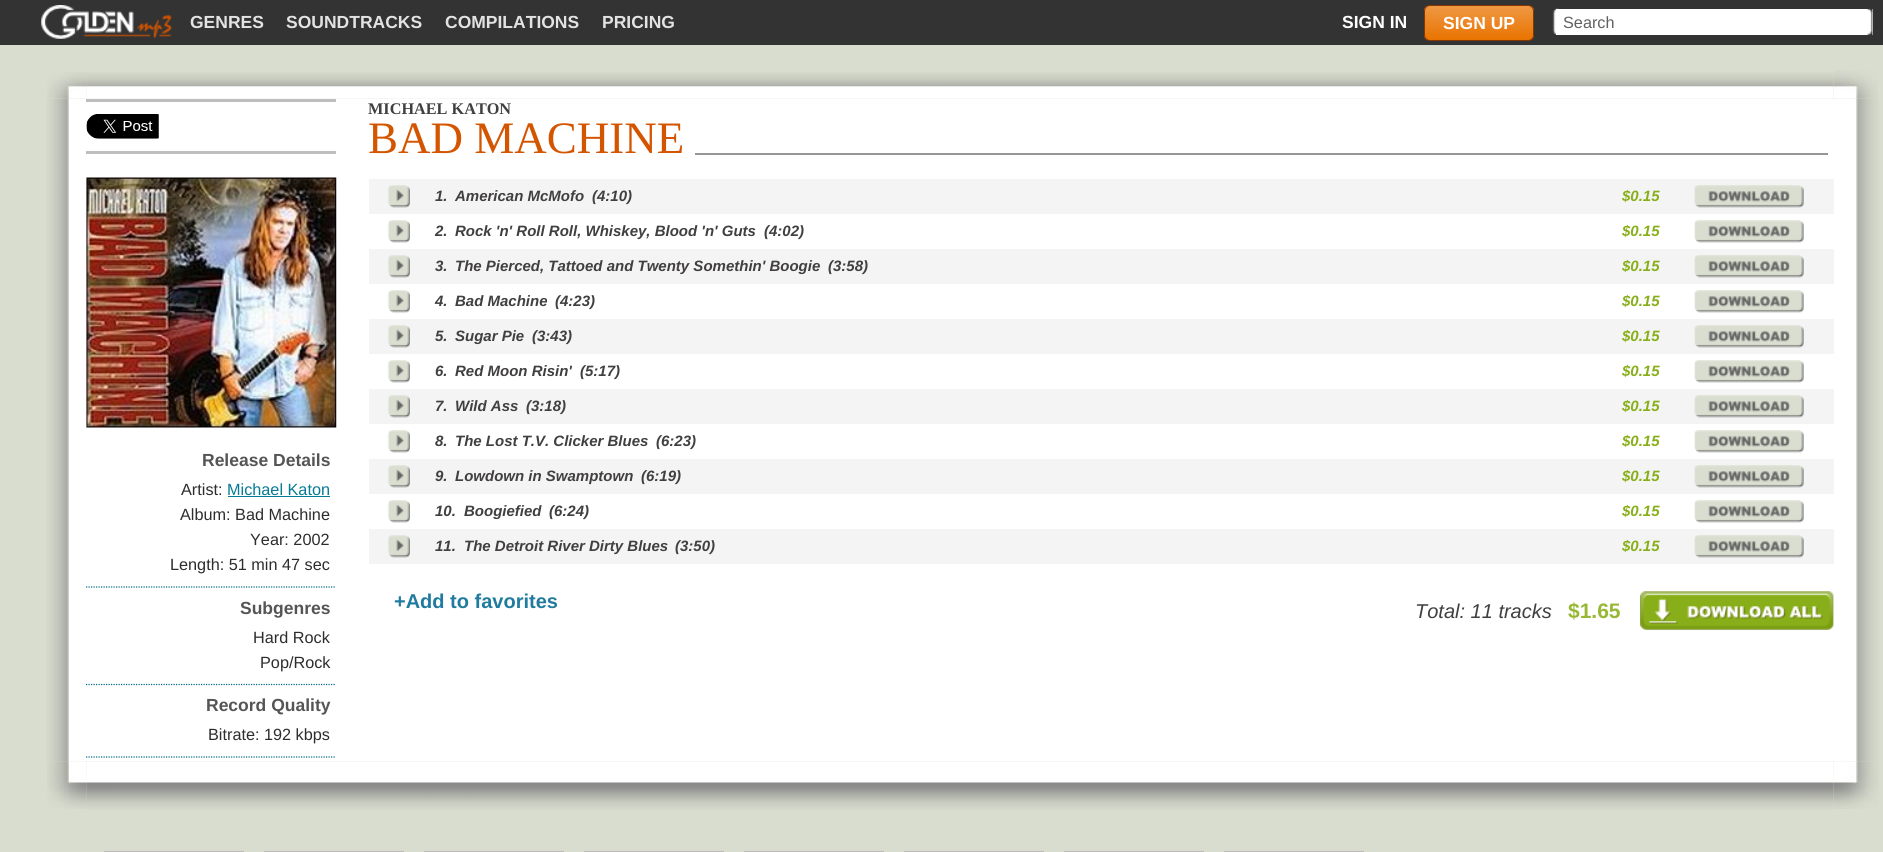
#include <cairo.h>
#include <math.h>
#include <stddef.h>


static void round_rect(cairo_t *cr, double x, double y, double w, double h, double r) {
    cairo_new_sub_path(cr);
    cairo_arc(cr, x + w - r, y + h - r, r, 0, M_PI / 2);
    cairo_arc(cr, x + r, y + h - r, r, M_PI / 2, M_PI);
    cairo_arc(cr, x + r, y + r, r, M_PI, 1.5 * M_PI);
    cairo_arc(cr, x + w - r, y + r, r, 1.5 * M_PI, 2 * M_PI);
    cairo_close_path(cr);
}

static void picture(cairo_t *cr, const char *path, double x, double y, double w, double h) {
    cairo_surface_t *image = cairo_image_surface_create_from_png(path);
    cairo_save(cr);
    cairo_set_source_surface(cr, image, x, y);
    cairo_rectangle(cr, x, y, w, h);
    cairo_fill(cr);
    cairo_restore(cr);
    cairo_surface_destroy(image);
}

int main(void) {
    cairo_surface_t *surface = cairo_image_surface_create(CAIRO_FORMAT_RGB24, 1883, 852);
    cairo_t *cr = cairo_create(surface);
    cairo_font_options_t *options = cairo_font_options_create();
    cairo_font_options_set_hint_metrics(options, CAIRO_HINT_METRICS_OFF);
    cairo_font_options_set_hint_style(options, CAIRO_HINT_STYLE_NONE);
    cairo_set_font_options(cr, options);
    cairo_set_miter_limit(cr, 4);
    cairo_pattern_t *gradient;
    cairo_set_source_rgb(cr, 0.851, 0.867, 0.812);
    cairo_paint(cr);
    cairo_set_source_rgb(cr, 0.2, 0.2, 0.2);
    cairo_rectangle(cr, 0, 0, 1883, 45);
    cairo_fill(cr);
    picture(cr, "img1.png", 41, 5, 131, 34);
    cairo_select_font_face(cr, "Liberation Sans", CAIRO_FONT_SLANT_NORMAL, CAIRO_FONT_WEIGHT_BOLD);
    cairo_set_font_size(cr, 17.5);
    cairo_set_source_rgb(cr, 0.89, 0.89, 0.89);
    cairo_move_to(cr, 190, 28);
    cairo_show_text(cr, "GENRES");
    cairo_move_to(cr, 286, 28);
    cairo_show_text(cr, "SOUNDTRACKS");
    cairo_move_to(cr, 445, 28);
    cairo_show_text(cr, "COMPILATIONS");
    cairo_move_to(cr, 602, 28);
    cairo_show_text(cr, "PRICING");
    cairo_set_source_rgb(cr, 1, 1, 1);
    cairo_move_to(cr, 1342, 28);
    cairo_show_text(cr, "SIGN IN");
    cairo_save(cr);
    round_rect(cr, 1424, 5, 110, 36, 6);
    cairo_clip(cr);
    gradient = cairo_pattern_create_linear(1479, 6.2, 1479, 40);
    cairo_pattern_add_color_stop_rgba(gradient, 0, 0.937, 0.596, 0.263, 1);
    cairo_pattern_add_color_stop_rgba(gradient, 1, 0.914, 0.451, 0, 1);
    cairo_set_source(cr, gradient);
    cairo_pattern_destroy(gradient);
    cairo_rectangle(cr, 1424, 6, 110, 34);
    cairo_fill(cr);
    cairo_restore(cr);
    round_rect(cr, 1424.5, 5.5, 109, 35, 5.5);
    cairo_set_source_rgb(cr, 0.533, 0.216, 0.008);
    cairo_set_line_width(cr, 1);
    cairo_stroke(cr);
    cairo_set_source_rgb(cr, 1, 1, 1);
    cairo_move_to(cr, 1443, 29);
    cairo_show_text(cr, "SIGN UP");
    picture(cr, "img2.png", 1552, 8, 7, 27);
    cairo_rectangle(cr, 1556, 9, 317, 26);
    cairo_fill(cr);
    picture(cr, "img3.png", 1867, 8, 6, 27);
    cairo_select_font_face(cr, "Liberation Sans", CAIRO_FONT_SLANT_NORMAL, CAIRO_FONT_WEIGHT_NORMAL);
    cairo_set_font_size(cr, 16.25);
    cairo_set_source_rgb(cr, 0.384, 0.38, 0.38);
    cairo_move_to(cr, 1563, 28);
    cairo_show_text(cr, "Search");
    picture(cr, "img4.png", 47, 72, 40, 27);
    picture(cr, "img5.png", 86, 72, 1748, 27);
    picture(cr, "img6.png", 1834, 70, 44, 29);
    picture(cr, "img7.png", 46, 99, 41, 663);
    picture(cr, "img17.png", 1833, 99, 46, 663);
    cairo_set_source_rgb(cr, 1, 1, 1);
    cairo_rectangle(cr, 86, 99, 1748, 662);
    cairo_fill(cr);
    cairo_set_source_rgb(cr, 0.745, 0.745, 0.745);
    cairo_rectangle(cr, 86, 99, 250, 3);
    cairo_fill(cr);
    cairo_rectangle(cr, 86, 151, 250, 3);
    cairo_fill(cr);
    picture(cr, "img8.png", 86, 114, 73, 25);
    cairo_select_font_face(cr, "Liberation Serif", CAIRO_FONT_SLANT_NORMAL, CAIRO_FONT_WEIGHT_BOLD);
    cairo_set_source_rgb(cr, 0.255, 0.247, 0.247);
    cairo_move_to(cr, 368, 114);
    cairo_show_text(cr, "MICHAEL KATON");
    cairo_select_font_face(cr, "Liberation Serif", CAIRO_FONT_SLANT_NORMAL, CAIRO_FONT_WEIGHT_NORMAL);
    cairo_set_font_size(cr, 45);
    cairo_set_source_rgb(cr, 0.831, 0.333, 0);
    cairo_move_to(cr, 368, 153);
    cairo_show_text(cr, "BAD MACHINE");
    cairo_set_source_rgb(cr, 0.588, 0.588, 0.588);
    cairo_rectangle(cr, 695, 153, 1133, 2);
    cairo_fill(cr);
    picture(cr, "img9.png", 86, 177, 251, 251);
    cairo_new_path(cr);
    cairo_move_to(cr, 86, 587);
    cairo_line_to(cr, 336, 587);
    cairo_set_source_rgb(cr, 0, 0.42, 0.533);
    cairo_set_line_width(cr, 1.2);
    cairo_set_dash(cr, (double[]){1.25, 1.25}, 2, 0);
    cairo_stroke(cr);
    cairo_select_font_face(cr, "Liberation Sans", CAIRO_FONT_SLANT_NORMAL, CAIRO_FONT_WEIGHT_BOLD);
    cairo_set_font_size(cr, 17.5);
    cairo_set_source_rgb(cr, 0.333, 0.333, 0.333);
    cairo_move_to(cr, 202, 466);
    cairo_show_text(cr, "Release Details");
    cairo_select_font_face(cr, "Liberation Sans", CAIRO_FONT_SLANT_NORMAL, CAIRO_FONT_WEIGHT_NORMAL);
    cairo_set_font_size(cr, 16.25);
    cairo_set_source_rgb(cr, 0.176, 0.176, 0.176);
    cairo_move_to(cr, 181, 495);
    cairo_show_text(cr, "Artist:");
    cairo_set_source_rgb(cr, 0.027, 0.482, 0.584);
    cairo_move_to(cr, 227, 495);
    cairo_show_text(cr, "Michael Katon");
    cairo_rectangle(cr, 228, 496, 102, 1);
    cairo_fill(cr);
    cairo_set_source_rgb(cr, 0.176, 0.176, 0.176);
    cairo_move_to(cr, 180, 520);
    cairo_show_text(cr, "Album: Bad Machine");
    cairo_move_to(cr, 250, 545);
    cairo_show_text(cr, "Year: 2002");
    cairo_move_to(cr, 170, 570);
    cairo_show_text(cr, "Length: 51 min 47 sec");
    cairo_new_path(cr);
    cairo_move_to(cr, 86, 684.5);
    cairo_line_to(cr, 336, 684.5);
    cairo_set_source_rgb(cr, 0, 0.42, 0.533);
    cairo_stroke(cr);
    cairo_select_font_face(cr, "Liberation Sans", CAIRO_FONT_SLANT_NORMAL, CAIRO_FONT_WEIGHT_BOLD);
    cairo_set_font_size(cr, 17.5);
    cairo_set_source_rgb(cr, 0.333, 0.333, 0.333);
    cairo_move_to(cr, 240, 614);
    cairo_show_text(cr, "Subgenres");
    cairo_select_font_face(cr, "Liberation Sans", CAIRO_FONT_SLANT_NORMAL, CAIRO_FONT_WEIGHT_NORMAL);
    cairo_set_font_size(cr, 16.25);
    cairo_set_source_rgb(cr, 0.176, 0.176, 0.176);
    cairo_move_to(cr, 253, 643);
    cairo_show_text(cr, "Hard Rock");
    cairo_move_to(cr, 260, 668);
    cairo_show_text(cr, "Pop/Rock");
    cairo_new_path(cr);
    cairo_move_to(cr, 86, 757);
    cairo_line_to(cr, 336, 757);
    cairo_set_source_rgb(cr, 0, 0.42, 0.533);
    cairo_stroke(cr);
    cairo_select_font_face(cr, "Liberation Sans", CAIRO_FONT_SLANT_NORMAL, CAIRO_FONT_WEIGHT_BOLD);
    cairo_set_font_size(cr, 17.5);
    cairo_set_source_rgb(cr, 0.333, 0.333, 0.333);
    cairo_move_to(cr, 206, 711);
    cairo_show_text(cr, "Record Quality");
    cairo_select_font_face(cr, "Liberation Sans", CAIRO_FONT_SLANT_NORMAL, CAIRO_FONT_WEIGHT_NORMAL);
    cairo_set_font_size(cr, 16.25);
    cairo_set_source_rgb(cr, 0.176, 0.176, 0.176);
    cairo_move_to(cr, 208, 740);
    cairo_show_text(cr, "Bitrate: 192 kbps");
    cairo_set_source_rgb(cr, 0.957, 0.957, 0.957);
    cairo_rectangle(cr, 369, 179, 1465, 35);
    cairo_fill(cr);
    picture(cr, "img10.png", 387, 185, 23, 23);
    cairo_select_font_face(cr, "Liberation Sans", CAIRO_FONT_SLANT_ITALIC, CAIRO_FONT_WEIGHT_BOLD);
    cairo_set_font_size(cr, 15);
    cairo_set_source_rgb(cr, 0.255, 0.247, 0.247);
    cairo_move_to(cr, 435, 201);
    cairo_show_text(cr, "1.");
    cairo_move_to(cr, 455, 201);
    cairo_show_text(cr, "American McMofo");
    cairo_move_to(cr, 592, 201);
    cairo_show_text(cr, "(4:10)");
    cairo_set_source_rgb(cr, 0.533, 0.686, 0.098);
    cairo_move_to(cr, 1622, 201);
    cairo_show_text(cr, "$0.15");
    picture(cr, "img11.png", 1694, 185, 110, 23);
    picture(cr, "img12.png", 387, 220, 23, 23);
    cairo_set_source_rgb(cr, 0.255, 0.247, 0.247);
    cairo_move_to(cr, 435, 236);
    cairo_show_text(cr, "2.");
    cairo_move_to(cr, 455, 236);
    cairo_show_text(cr, "Rock 'n' Roll Roll, Whiskey, Blood 'n' Guts");
    cairo_move_to(cr, 764, 236);
    cairo_show_text(cr, "(4:02)");
    cairo_set_source_rgb(cr, 0.533, 0.686, 0.098);
    cairo_move_to(cr, 1622, 236);
    cairo_show_text(cr, "$0.15");
    picture(cr, "img13.png", 1694, 220, 110, 23);
    cairo_set_source_rgb(cr, 0.957, 0.957, 0.957);
    cairo_rectangle(cr, 369, 249, 1465, 35);
    cairo_fill(cr);
    picture(cr, "img10.png", 387, 255, 23, 23);
    cairo_set_source_rgb(cr, 0.255, 0.247, 0.247);
    cairo_move_to(cr, 435, 271);
    cairo_show_text(cr, "3.");
    cairo_move_to(cr, 455, 271);
    cairo_show_text(cr, "The Pierced, Tattoed and Twenty Somethin' Boogie");
    cairo_move_to(cr, 828, 271);
    cairo_show_text(cr, "(3:58)");
    cairo_set_source_rgb(cr, 0.533, 0.686, 0.098);
    cairo_move_to(cr, 1622, 271);
    cairo_show_text(cr, "$0.15");
    picture(cr, "img11.png", 1694, 255, 110, 23);
    picture(cr, "img14.png", 387, 290, 23, 23);
    cairo_set_source_rgb(cr, 0.255, 0.247, 0.247);
    cairo_move_to(cr, 435, 306);
    cairo_show_text(cr, "4.");
    cairo_move_to(cr, 455, 306);
    cairo_show_text(cr, "Bad Machine");
    cairo_move_to(cr, 555, 306);
    cairo_show_text(cr, "(4:23)");
    cairo_set_source_rgb(cr, 0.533, 0.686, 0.098);
    cairo_move_to(cr, 1622, 306);
    cairo_show_text(cr, "$0.15");
    picture(cr, "img15.png", 1694, 290, 110, 23);
    cairo_set_source_rgb(cr, 0.957, 0.957, 0.957);
    cairo_rectangle(cr, 369, 319, 1465, 35);
    cairo_fill(cr);
    picture(cr, "img10.png", 387, 325, 23, 23);
    cairo_set_source_rgb(cr, 0.255, 0.247, 0.247);
    cairo_move_to(cr, 435, 341);
    cairo_show_text(cr, "5.");
    cairo_move_to(cr, 455, 341);
    cairo_show_text(cr, "Sugar Pie");
    cairo_move_to(cr, 532, 341);
    cairo_show_text(cr, "(3:43)");
    cairo_set_source_rgb(cr, 0.533, 0.686, 0.098);
    cairo_move_to(cr, 1622, 341);
    cairo_show_text(cr, "$0.15");
    picture(cr, "img11.png", 1694, 325, 110, 23);
    picture(cr, "img12.png", 387, 360, 23, 23);
    cairo_set_source_rgb(cr, 0.255, 0.247, 0.247);
    cairo_move_to(cr, 435, 376);
    cairo_show_text(cr, "6.");
    cairo_move_to(cr, 455, 376);
    cairo_show_text(cr, "Red Moon Risin'");
    cairo_move_to(cr, 580, 376);
    cairo_show_text(cr, "(5:17)");
    cairo_set_source_rgb(cr, 0.533, 0.686, 0.098);
    cairo_move_to(cr, 1622, 376);
    cairo_show_text(cr, "$0.15");
    picture(cr, "img13.png", 1694, 360, 110, 23);
    cairo_set_source_rgb(cr, 0.957, 0.957, 0.957);
    cairo_rectangle(cr, 369, 389, 1465, 35);
    cairo_fill(cr);
    picture(cr, "img10.png", 387, 395, 23, 23);
    cairo_set_source_rgb(cr, 0.255, 0.247, 0.247);
    cairo_move_to(cr, 435, 411);
    cairo_show_text(cr, "7.");
    cairo_move_to(cr, 455, 411);
    cairo_show_text(cr, "Wild Ass");
    cairo_move_to(cr, 526, 411);
    cairo_show_text(cr, "(3:18)");
    cairo_set_source_rgb(cr, 0.533, 0.686, 0.098);
    cairo_move_to(cr, 1622, 411);
    cairo_show_text(cr, "$0.15");
    picture(cr, "img11.png", 1694, 395, 110, 23);
    picture(cr, "img12.png", 387, 430, 23, 23);
    cairo_set_source_rgb(cr, 0.255, 0.247, 0.247);
    cairo_move_to(cr, 435, 446);
    cairo_show_text(cr, "8.");
    cairo_move_to(cr, 455, 446);
    cairo_show_text(cr, "The Lost T.V. Clicker Blues");
    cairo_move_to(cr, 656, 446);
    cairo_show_text(cr, "(6:23)");
    cairo_set_source_rgb(cr, 0.533, 0.686, 0.098);
    cairo_move_to(cr, 1622, 446);
    cairo_show_text(cr, "$0.15");
    picture(cr, "img13.png", 1694, 430, 110, 23);
    cairo_set_source_rgb(cr, 0.957, 0.957, 0.957);
    cairo_rectangle(cr, 369, 459, 1465, 35);
    cairo_fill(cr);
    picture(cr, "img10.png", 387, 465, 23, 23);
    cairo_set_source_rgb(cr, 0.255, 0.247, 0.247);
    cairo_move_to(cr, 435, 481);
    cairo_show_text(cr, "9.");
    cairo_move_to(cr, 455, 481);
    cairo_show_text(cr, "Lowdown in Swamptown");
    cairo_move_to(cr, 641, 481);
    cairo_show_text(cr, "(6:19)");
    cairo_set_source_rgb(cr, 0.533, 0.686, 0.098);
    cairo_move_to(cr, 1622, 481);
    cairo_show_text(cr, "$0.15");
    picture(cr, "img11.png", 1694, 465, 110, 23);
    picture(cr, "img12.png", 387, 500, 23, 23);
    cairo_set_source_rgb(cr, 0.255, 0.247, 0.247);
    cairo_move_to(cr, 435, 516);
    cairo_show_text(cr, "10.");
    cairo_move_to(cr, 464, 516);
    cairo_show_text(cr, "Boogiefied");
    cairo_move_to(cr, 549, 516);
    cairo_show_text(cr, "(6:24)");
    cairo_set_source_rgb(cr, 0.533, 0.686, 0.098);
    cairo_move_to(cr, 1622, 516);
    cairo_show_text(cr, "$0.15");
    picture(cr, "img13.png", 1694, 500, 110, 23);
    cairo_set_source_rgb(cr, 0.957, 0.957, 0.957);
    cairo_rectangle(cr, 369, 529, 1465, 35);
    cairo_fill(cr);
    picture(cr, "img10.png", 387, 535, 23, 23);
    cairo_set_source_rgb(cr, 0.255, 0.247, 0.247);
    cairo_move_to(cr, 435, 551);
    cairo_show_text(cr, "11.");
    cairo_move_to(cr, 464, 551);
    cairo_show_text(cr, "The Detroit River Dirty Blues");
    cairo_move_to(cr, 675, 551);
    cairo_show_text(cr, "(3:50)");
    cairo_set_source_rgb(cr, 0.533, 0.686, 0.098);
    cairo_move_to(cr, 1622, 551);
    cairo_show_text(cr, "$0.15");
    picture(cr, "img11.png", 1694, 535, 110, 23);
    cairo_select_font_face(cr, "Liberation Sans", CAIRO_FONT_SLANT_NORMAL, CAIRO_FONT_WEIGHT_BOLD);
    cairo_set_font_size(cr, 20);
    cairo_set_source_rgb(cr, 0.125, 0.482, 0.624);
    cairo_move_to(cr, 394, 608);
    cairo_show_text(cr, "+Add to favorites");
    cairo_select_font_face(cr, "Liberation Sans", CAIRO_FONT_SLANT_ITALIC, CAIRO_FONT_WEIGHT_NORMAL);
    cairo_set_source_rgb(cr, 0.255, 0.247, 0.247);
    cairo_move_to(cr, 1415, 618);
    cairo_show_text(cr, "Total: 11 tracks");
    cairo_select_font_face(cr, "Liberation Sans", CAIRO_FONT_SLANT_NORMAL, CAIRO_FONT_WEIGHT_BOLD);
    cairo_set_font_size(cr, 21);
    cairo_set_source_rgb(cr, 0.588, 0.722, 0.2);
    cairo_move_to(cr, 1568, 618);
    cairo_show_text(cr, "$1.65");
    picture(cr, "img16.png", 1640, 591, 194, 39);
    picture(cr, "img18.png", 47, 761, 40, 48);
    picture(cr, "img19.png", 86, 761, 1748, 49);
    picture(cr, "img20.png", 1833, 761, 46, 48);
    cairo_rectangle(cr, 104.5, 851.5, 139, 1);
    cairo_set_source_rgb(cr, 0.745, 0.729, 0.729);
    cairo_set_line_width(cr, 1);
    cairo_set_dash(cr, NULL, 0, 0);
    cairo_stroke(cr);
    cairo_rectangle(cr, 264.5, 851.5, 139, 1);
    cairo_stroke(cr);
    cairo_rectangle(cr, 424.5, 851.5, 139, 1);
    cairo_stroke(cr);
    cairo_rectangle(cr, 584.5, 851.5, 139, 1);
    cairo_stroke(cr);
    cairo_rectangle(cr, 744.5, 851.5, 139, 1);
    cairo_stroke(cr);
    cairo_rectangle(cr, 904.5, 851.5, 139, 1);
    cairo_stroke(cr);
    cairo_rectangle(cr, 1064.5, 851.5, 139, 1);
    cairo_stroke(cr);
    cairo_rectangle(cr, 1224.5, 851.5, 139, 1);
    cairo_stroke(cr);
    cairo_surface_write_to_png(surface, "page.png");
    cairo_font_options_destroy(options);
    cairo_destroy(cr);
    cairo_surface_destroy(surface);
    return 0;
}
